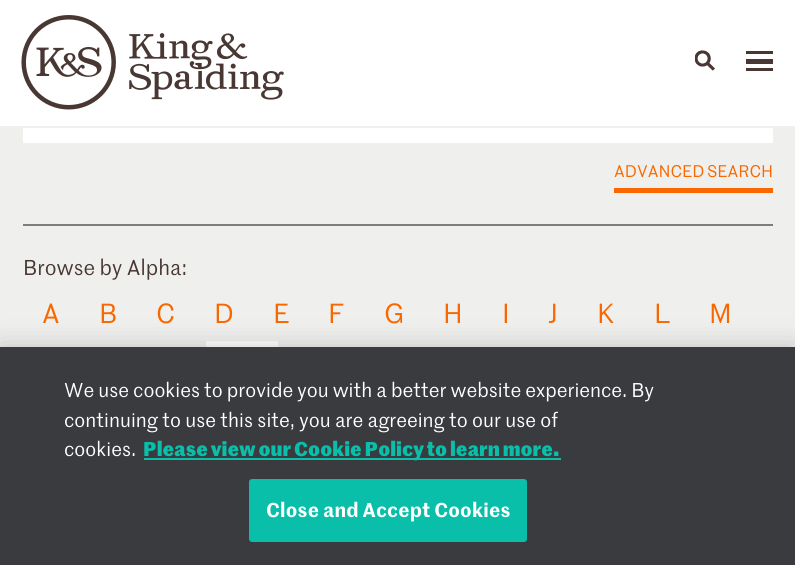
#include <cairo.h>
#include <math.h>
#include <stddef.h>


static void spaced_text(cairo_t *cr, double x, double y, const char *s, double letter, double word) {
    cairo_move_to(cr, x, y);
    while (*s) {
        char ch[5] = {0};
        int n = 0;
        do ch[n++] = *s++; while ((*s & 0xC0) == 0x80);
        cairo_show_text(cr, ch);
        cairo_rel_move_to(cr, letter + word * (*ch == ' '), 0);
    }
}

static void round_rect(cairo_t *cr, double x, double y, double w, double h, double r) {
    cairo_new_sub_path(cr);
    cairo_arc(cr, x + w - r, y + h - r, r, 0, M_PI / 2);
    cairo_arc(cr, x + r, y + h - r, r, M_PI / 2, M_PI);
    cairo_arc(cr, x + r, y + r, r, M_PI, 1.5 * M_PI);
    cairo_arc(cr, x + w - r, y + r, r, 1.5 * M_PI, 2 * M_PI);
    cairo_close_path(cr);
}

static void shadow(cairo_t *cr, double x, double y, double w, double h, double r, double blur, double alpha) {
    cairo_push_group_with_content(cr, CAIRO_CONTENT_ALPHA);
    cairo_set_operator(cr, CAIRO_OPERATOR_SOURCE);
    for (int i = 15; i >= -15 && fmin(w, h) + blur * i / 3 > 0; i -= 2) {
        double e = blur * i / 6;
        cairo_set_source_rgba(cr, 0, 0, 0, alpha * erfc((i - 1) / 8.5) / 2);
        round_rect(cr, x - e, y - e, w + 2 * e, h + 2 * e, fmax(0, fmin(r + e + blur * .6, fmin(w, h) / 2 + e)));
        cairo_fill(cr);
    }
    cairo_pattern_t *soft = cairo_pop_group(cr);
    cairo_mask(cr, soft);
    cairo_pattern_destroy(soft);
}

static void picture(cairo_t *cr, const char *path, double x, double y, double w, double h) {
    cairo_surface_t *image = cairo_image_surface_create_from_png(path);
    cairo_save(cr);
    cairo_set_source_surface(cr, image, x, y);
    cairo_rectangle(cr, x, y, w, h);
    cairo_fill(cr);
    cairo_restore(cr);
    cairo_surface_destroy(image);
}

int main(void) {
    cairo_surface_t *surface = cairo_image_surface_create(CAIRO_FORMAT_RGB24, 795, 565);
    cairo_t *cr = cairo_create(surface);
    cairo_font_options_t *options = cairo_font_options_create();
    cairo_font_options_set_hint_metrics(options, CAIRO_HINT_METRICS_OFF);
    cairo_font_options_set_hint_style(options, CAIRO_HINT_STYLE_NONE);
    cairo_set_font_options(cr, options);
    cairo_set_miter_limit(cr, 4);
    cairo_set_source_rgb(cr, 0.937, 0.941, 0.929);
    cairo_paint(cr);
    cairo_set_source_rgb(cr, 1, 1, 1);
    cairo_rectangle(cr, 0, 0, 795, 126);
    cairo_fill(cr);
    picture(cr, "img1.png", 21, 15, 263, 95);
    picture(cr, "img2.png", 695, 50, 20, 21);
    cairo_set_source_rgb(cr, 0.282, 0.216, 0.2);
    cairo_rectangle(cr, 746, 59, 27, 5);
    cairo_fill(cr);
    cairo_rectangle(cr, 746, 51, 27, 3);
    cairo_fill(cr);
    cairo_rectangle(cr, 746, 68, 27, 3);
    cairo_fill(cr);
    cairo_set_source_rgb(cr, 0.502, 0.49, 0.475);
    cairo_rectangle(cr, 23, 224, 750, 2);
    cairo_fill(cr);
    cairo_set_source_rgb(cr, 1, 1, 1);
    cairo_rectangle(cr, 23, 128, 750, 15);
    cairo_fill(cr);
    cairo_set_source_rgb(cr, 0.976, 0.408, 0);
    cairo_rectangle(cr, 614, 188, 159, 5);
    cairo_fill(cr);
    cairo_select_font_face(cr, "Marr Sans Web", CAIRO_FONT_SLANT_NORMAL, CAIRO_FONT_WEIGHT_NORMAL);
    cairo_set_font_size(cr, 16.5);
    spaced_text(cr, 614, 177, "ADVANCED SEARCH", 0, -1);
    cairo_set_font_size(cr, 21);
    cairo_set_source_rgb(cr, 0.282, 0.216, 0.2);
    cairo_move_to(cr, 23, 275);
    cairo_show_text(cr, "Browse by Alpha:");
    cairo_set_font_size(cr, 27);
    cairo_set_source_rgb(cr, 0.976, 0.408, 0);
    cairo_move_to(cr, 42, 323);
    cairo_show_text(cr, "A");
    cairo_move_to(cr, 99, 323);
    cairo_show_text(cr, "B");
    cairo_move_to(cr, 156, 323);
    cairo_show_text(cr, "C");
    cairo_move_to(cr, 214, 323);
    cairo_show_text(cr, "D");
    cairo_move_to(cr, 273, 323);
    cairo_show_text(cr, "E");
    cairo_move_to(cr, 328, 323);
    cairo_show_text(cr, "F");
    cairo_move_to(cr, 384, 323);
    cairo_show_text(cr, "G");
    cairo_move_to(cr, 443, 323);
    cairo_show_text(cr, "H");
    cairo_move_to(cr, 502, 323);
    cairo_show_text(cr, "I");
    cairo_move_to(cr, 548, 323);
    cairo_show_text(cr, "J");
    cairo_move_to(cr, 597, 323);
    cairo_show_text(cr, "K");
    cairo_move_to(cr, 654, 323);
    cairo_show_text(cr, "L");
    cairo_move_to(cr, 709, 323);
    cairo_show_text(cr, "M");
    cairo_set_source_rgb(cr, 1, 1, 1);
    cairo_rectangle(cr, 206, 341, 72, 6);
    cairo_fill(cr);
    cairo_set_source_rgb(cr, 0, 0, 0);
    shadow(cr, 0, 347, 795, 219, 0, 13.5, 0.2);
    cairo_set_source_rgb(cr, 0.227, 0.231, 0.247);
    cairo_rectangle(cr, 0, 347, 795, 218);
    cairo_fill(cr);
    cairo_set_font_size(cr, 19.5);
    cairo_set_source_rgb(cr, 1, 1, 1);
    spaced_text(cr, 64, 397, "We use cookies to provide you with a better website experience. By", 0, -0.25);
    cairo_save(cr);
    cairo_rectangle(cr, 65, 377, 631, 87);
    cairo_clip(cr);
    cairo_move_to(cr, 64, 427);
    cairo_show_text(cr, "continuing to use this site, you are agreeing to our use of");
    cairo_move_to(cr, 64, 456);
    cairo_show_text(cr, "cookies.");
    cairo_restore(cr);
    cairo_set_source_rgb(cr, 0.039, 0.749, 0.667);
    cairo_rectangle(cr, 144, 458, 417, 2);
    cairo_fill(cr);
    cairo_select_font_face(cr, "Marr Sans Web", CAIRO_FONT_SLANT_NORMAL, CAIRO_FONT_WEIGHT_BOLD);
    spaced_text(cr, 143, 456, "Please view our Cookie Policy to learn more.", 0, -0.25);
    round_rect(cr, 250, 480, 276, 61, 2);
    cairo_fill_preserve(cr);
    cairo_stroke(cr);
    cairo_select_font_face(cr, "Marr Sans Web SemiBold", CAIRO_FONT_SLANT_NORMAL, CAIRO_FONT_WEIGHT_NORMAL);
    cairo_set_source_rgb(cr, 1, 1, 1);
    spaced_text(cr, 266, 517, "Close and Accept Cookies", 0.2, 0);
    cairo_surface_write_to_png(surface, "page.png");
    cairo_font_options_destroy(options);
    cairo_destroy(cr);
    cairo_surface_destroy(surface);
    return 0;
}
